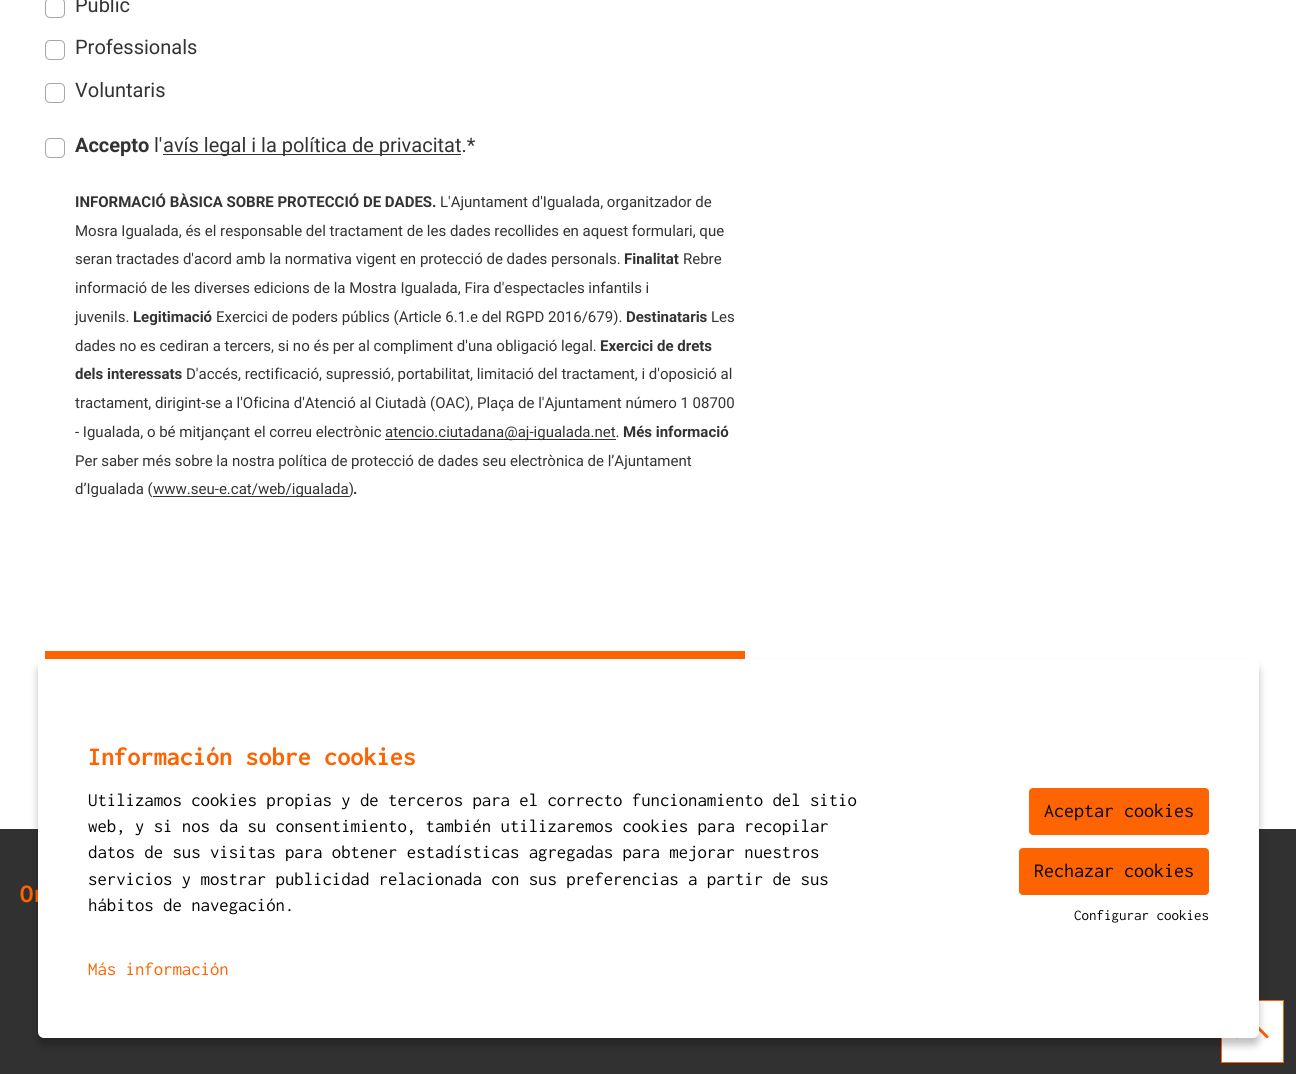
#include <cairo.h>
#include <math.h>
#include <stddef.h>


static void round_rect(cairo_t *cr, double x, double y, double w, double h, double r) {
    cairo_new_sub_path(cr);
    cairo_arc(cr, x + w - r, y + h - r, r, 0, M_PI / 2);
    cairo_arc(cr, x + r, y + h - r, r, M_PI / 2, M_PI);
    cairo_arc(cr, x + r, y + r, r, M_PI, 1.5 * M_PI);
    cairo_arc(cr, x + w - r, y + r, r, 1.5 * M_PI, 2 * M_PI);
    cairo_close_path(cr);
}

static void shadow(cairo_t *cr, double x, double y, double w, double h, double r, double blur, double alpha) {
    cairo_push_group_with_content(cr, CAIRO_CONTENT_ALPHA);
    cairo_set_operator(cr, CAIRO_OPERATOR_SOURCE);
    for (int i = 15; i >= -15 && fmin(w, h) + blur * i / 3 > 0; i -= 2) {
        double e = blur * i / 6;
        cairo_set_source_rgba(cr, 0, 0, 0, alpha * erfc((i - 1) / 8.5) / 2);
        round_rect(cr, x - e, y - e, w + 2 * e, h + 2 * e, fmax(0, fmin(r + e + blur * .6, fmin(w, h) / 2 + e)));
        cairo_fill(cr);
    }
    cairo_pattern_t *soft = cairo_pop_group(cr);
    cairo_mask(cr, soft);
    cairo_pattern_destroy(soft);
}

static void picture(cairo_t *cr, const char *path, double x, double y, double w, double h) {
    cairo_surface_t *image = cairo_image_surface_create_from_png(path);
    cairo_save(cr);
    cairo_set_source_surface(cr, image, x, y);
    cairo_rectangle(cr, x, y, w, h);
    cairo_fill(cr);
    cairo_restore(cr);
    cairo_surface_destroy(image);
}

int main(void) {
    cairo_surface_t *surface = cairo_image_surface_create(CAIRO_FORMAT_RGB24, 1296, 1074);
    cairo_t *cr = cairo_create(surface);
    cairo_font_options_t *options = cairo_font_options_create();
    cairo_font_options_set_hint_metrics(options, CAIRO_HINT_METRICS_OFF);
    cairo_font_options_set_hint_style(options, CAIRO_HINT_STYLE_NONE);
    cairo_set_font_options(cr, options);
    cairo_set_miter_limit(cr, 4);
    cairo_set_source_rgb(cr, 1, 1, 1);
    cairo_paint(cr);
    round_rect(cr, 45.5, -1.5, 19, 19, 4.5);
    cairo_set_source_rgb(cr, 0.655, 0.655, 0.655);
    cairo_set_line_width(cr, 1);
    cairo_stroke(cr);
    cairo_select_font_face(cr, "Roboto", CAIRO_FONT_SLANT_NORMAL, CAIRO_FONT_WEIGHT_NORMAL);
    cairo_set_font_size(cr, 20);
    cairo_set_source_rgb(cr, 0.2, 0.2, 0.2);
    cairo_move_to(cr, 75, 12);
    cairo_show_text(cr, "Públic");
    round_rect(cr, 45.5, 40.5, 19, 19, 4.5);
    cairo_set_source_rgb(cr, 0.655, 0.655, 0.655);
    cairo_stroke(cr);
    cairo_set_source_rgb(cr, 0.2, 0.2, 0.2);
    cairo_move_to(cr, 75, 54);
    cairo_show_text(cr, "Professionals");
    round_rect(cr, 45.5, 83.5, 19, 19, 4.5);
    cairo_set_source_rgb(cr, 0.655, 0.655, 0.655);
    cairo_stroke(cr);
    cairo_set_source_rgb(cr, 0.2, 0.2, 0.2);
    cairo_move_to(cr, 75, 97);
    cairo_show_text(cr, "Voluntaris");
    round_rect(cr, 45.5, 138.5, 19, 19, 4.5);
    cairo_set_source_rgb(cr, 0.655, 0.655, 0.655);
    cairo_stroke(cr);
    cairo_select_font_face(cr, "Roboto", CAIRO_FONT_SLANT_NORMAL, CAIRO_FONT_WEIGHT_BOLD);
    cairo_set_source_rgb(cr, 0.2, 0.2, 0.2);
    cairo_move_to(cr, 75, 152);
    cairo_show_text(cr, "Accepto");
    cairo_select_font_face(cr, "Roboto", CAIRO_FONT_SLANT_NORMAL, CAIRO_FONT_WEIGHT_NORMAL);
    cairo_move_to(cr, 154, 152);
    cairo_show_text(cr, "l'");
    cairo_rectangle(cr, 163, 154, 298, 1);
    cairo_fill(cr);
    cairo_move_to(cr, 163, 152);
    cairo_show_text(cr, "avís legal i la política de privacitat.*");
    cairo_select_font_face(cr, "Roboto", CAIRO_FONT_SLANT_NORMAL, CAIRO_FONT_WEIGHT_BOLD);
    cairo_set_font_size(cr, 15);
    cairo_move_to(cr, 75, 207);
    cairo_show_text(cr, "INFORMACIÓ BÀSICA SOBRE PROTECCIÓ DE DADES.");
    cairo_select_font_face(cr, "Roboto", CAIRO_FONT_SLANT_NORMAL, CAIRO_FONT_WEIGHT_NORMAL);
    cairo_move_to(cr, 440, 207);
    cairo_show_text(cr, "L'Ajuntament d'Igualada, organitzador de");
    cairo_move_to(cr, 75, 236);
    cairo_show_text(cr, "Mosra Igualada, és el responsable del tractament de les dades recollides en aquest formulari, que");
    cairo_move_to(cr, 75, 264);
    cairo_show_text(cr, "seran tractades d'acord amb la normativa vigent en protecció de dades personals.");
    cairo_select_font_face(cr, "Roboto", CAIRO_FONT_SLANT_NORMAL, CAIRO_FONT_WEIGHT_BOLD);
    cairo_move_to(cr, 624, 264);
    cairo_show_text(cr, "Finalitat");
    cairo_select_font_face(cr, "Roboto", CAIRO_FONT_SLANT_NORMAL, CAIRO_FONT_WEIGHT_NORMAL);
    cairo_move_to(cr, 683, 264);
    cairo_show_text(cr, "Rebre");
    cairo_move_to(cr, 75, 293);
    cairo_show_text(cr, "informació de les diverses edicions de la Mostra Igualada, Fira d'espectacles infantils i");
    cairo_move_to(cr, 75, 322);
    cairo_show_text(cr, "juvenils.");
    cairo_select_font_face(cr, "Roboto", CAIRO_FONT_SLANT_NORMAL, CAIRO_FONT_WEIGHT_BOLD);
    cairo_move_to(cr, 133, 322);
    cairo_show_text(cr, "Legitimació");
    cairo_select_font_face(cr, "Roboto", CAIRO_FONT_SLANT_NORMAL, CAIRO_FONT_WEIGHT_NORMAL);
    cairo_move_to(cr, 216, 322);
    cairo_show_text(cr, "Exercici de poders públics (Article 6.1.e del RGPD 2016/679).");
    cairo_select_font_face(cr, "Roboto", CAIRO_FONT_SLANT_NORMAL, CAIRO_FONT_WEIGHT_BOLD);
    cairo_move_to(cr, 626, 322);
    cairo_show_text(cr, "Destinataris");
    cairo_select_font_face(cr, "Roboto", CAIRO_FONT_SLANT_NORMAL, CAIRO_FONT_WEIGHT_NORMAL);
    cairo_move_to(cr, 711, 322);
    cairo_show_text(cr, "Les");
    cairo_move_to(cr, 75, 351);
    cairo_show_text(cr, "dades no es cediran a tercers, si no és per al compliment d'una obligació legal.");
    cairo_select_font_face(cr, "Roboto", CAIRO_FONT_SLANT_NORMAL, CAIRO_FONT_WEIGHT_BOLD);
    cairo_move_to(cr, 600, 351);
    cairo_show_text(cr, "Exercici de drets");
    cairo_move_to(cr, 75, 379);
    cairo_show_text(cr, "dels interessats");
    cairo_select_font_face(cr, "Roboto", CAIRO_FONT_SLANT_NORMAL, CAIRO_FONT_WEIGHT_NORMAL);
    cairo_move_to(cr, 186, 379);
    cairo_show_text(cr, "D'accés, rectificació, supressió, portabilitat, limitació del tractament, i d'oposició al");
    cairo_move_to(cr, 75, 408);
    cairo_show_text(cr, "tractament, dirigint-se a l'Oficina d'Atenció al Ciutadà (OAC), Plaça de l'Ajuntament número 1 08700");
    cairo_move_to(cr, 75, 437);
    cairo_show_text(cr, "- Igualada, o bé mitjançant el correu electrònic");
    cairo_rectangle(cr, 385, 439, 231, 1);
    cairo_fill(cr);
    cairo_move_to(cr, 385, 437);
    cairo_show_text(cr, "atencio.ciutadana@aj-igualada.net.");
    cairo_select_font_face(cr, "Roboto", CAIRO_FONT_SLANT_NORMAL, CAIRO_FONT_WEIGHT_BOLD);
    cairo_move_to(cr, 623, 437);
    cairo_show_text(cr, "Més informació");
    cairo_select_font_face(cr, "Roboto", CAIRO_FONT_SLANT_NORMAL, CAIRO_FONT_WEIGHT_NORMAL);
    cairo_move_to(cr, 75, 466);
    cairo_show_text(cr, "Per saber més sobre la nostra política de protecció de dades seu electrònica de l’Ajuntament");
    cairo_move_to(cr, 75, 494);
    cairo_show_text(cr, "d’Igualada (");
    cairo_rectangle(cr, 153, 496, 196, 1);
    cairo_fill(cr);
    cairo_move_to(cr, 153, 494);
    cairo_show_text(cr, "www.seu-e.cat/web/igualada)");
    cairo_select_font_face(cr, "Roboto", CAIRO_FONT_SLANT_NORMAL, CAIRO_FONT_WEIGHT_BOLD);
    cairo_move_to(cr, 353, 494);
    cairo_show_text(cr, ".");
    cairo_set_source_rgb(cr, 0.996, 0.388, 0);
    cairo_rectangle(cr, 45, 651, 700, 8);
    cairo_fill(cr);
    cairo_set_source_rgb(cr, 0.192, 0.192, 0.192);
    cairo_rectangle(cr, 0, 829, 1296, 245);
    cairo_fill(cr);
    cairo_select_font_face(cr, "Inconsolata", CAIRO_FONT_SLANT_NORMAL, CAIRO_FONT_WEIGHT_BOLD);
    cairo_set_font_size(cr, 26.25);
    cairo_set_source_rgb(cr, 0.996, 0.388, 0);
    cairo_move_to(cr, 20, 902);
    cairo_show_text(cr, "Or");
    cairo_set_source_rgb(cr, 1, 1, 1);
    cairo_rectangle(cr, 1221.5, 1000.5, 62, 62);
    cairo_fill_preserve(cr);
    cairo_set_source_rgb(cr, 0.996, 0.388, 0);
    cairo_stroke(cr);
    picture(cr, "img1.png", 1236, 1026, 33, 13);
    cairo_set_source_rgb(cr, 0.008, 0.008, 0.008);
    shadow(cr, 38, 666, 1221, 379, 6, 4, 0.25);
    cairo_set_source_rgb(cr, 1, 1, 1);
    round_rect(cr, 38, 659, 1221, 379, 6);
    cairo_fill(cr);
    cairo_set_source_rgb(cr, 0.996, 0.388, 0);
    cairo_move_to(cr, 88, 765);
    cairo_show_text(cr, "Información sobre cookies");
    cairo_select_font_face(cr, "Inconsolata", CAIRO_FONT_SLANT_NORMAL, CAIRO_FONT_WEIGHT_NORMAL);
    cairo_set_font_size(cr, 18.75);
    cairo_set_source_rgb(cr, 0.012, 0.012, 0.012);
    cairo_move_to(cr, 88, 806);
    cairo_show_text(cr, "Utilizamos cookies propias y de terceros para el correcto funcionamiento del sitio");
    cairo_move_to(cr, 88, 832);
    cairo_show_text(cr, "web, y si nos da su consentimiento, también utilizaremos cookies para recopilar");
    cairo_move_to(cr, 88, 858);
    cairo_show_text(cr, "datos de sus visitas para obtener estadísticas agregadas para mejorar nuestros");
    cairo_move_to(cr, 88, 885);
    cairo_show_text(cr, "servicios y mostrar publicidad relacionada con sus preferencias a partir de sus");
    cairo_move_to(cr, 88, 911);
    cairo_show_text(cr, "hábitos de navegación.");
    cairo_set_source_rgb(cr, 0.996, 0.388, 0);
    cairo_move_to(cr, 88, 975);
    cairo_show_text(cr, "Más información");
    cairo_set_source_rgb(cr, 0.996, 0.392, 0.004);
    round_rect(cr, 1029, 788, 180, 47, 4);
    cairo_fill(cr);
    cairo_set_font_size(cr, 20);
    cairo_set_source_rgb(cr, 0.012, 0.012, 0.012);
    cairo_move_to(cr, 1044, 817);
    cairo_show_text(cr, "Aceptar cookies");
    cairo_set_source_rgb(cr, 0.992, 0.388, 0);
    round_rect(cr, 1019, 848, 190, 47, 4);
    cairo_fill(cr);
    cairo_set_source_rgb(cr, 0.012, 0.012, 0.012);
    cairo_move_to(cr, 1034, 877);
    cairo_show_text(cr, "Rechazar cookies");
    cairo_set_font_size(cr, 15);
    cairo_move_to(cr, 1074, 920);
    cairo_show_text(cr, "Configurar cookies");
    cairo_surface_write_to_png(surface, "page.png");
    cairo_font_options_destroy(options);
    cairo_destroy(cr);
    cairo_surface_destroy(surface);
    return 0;
}
